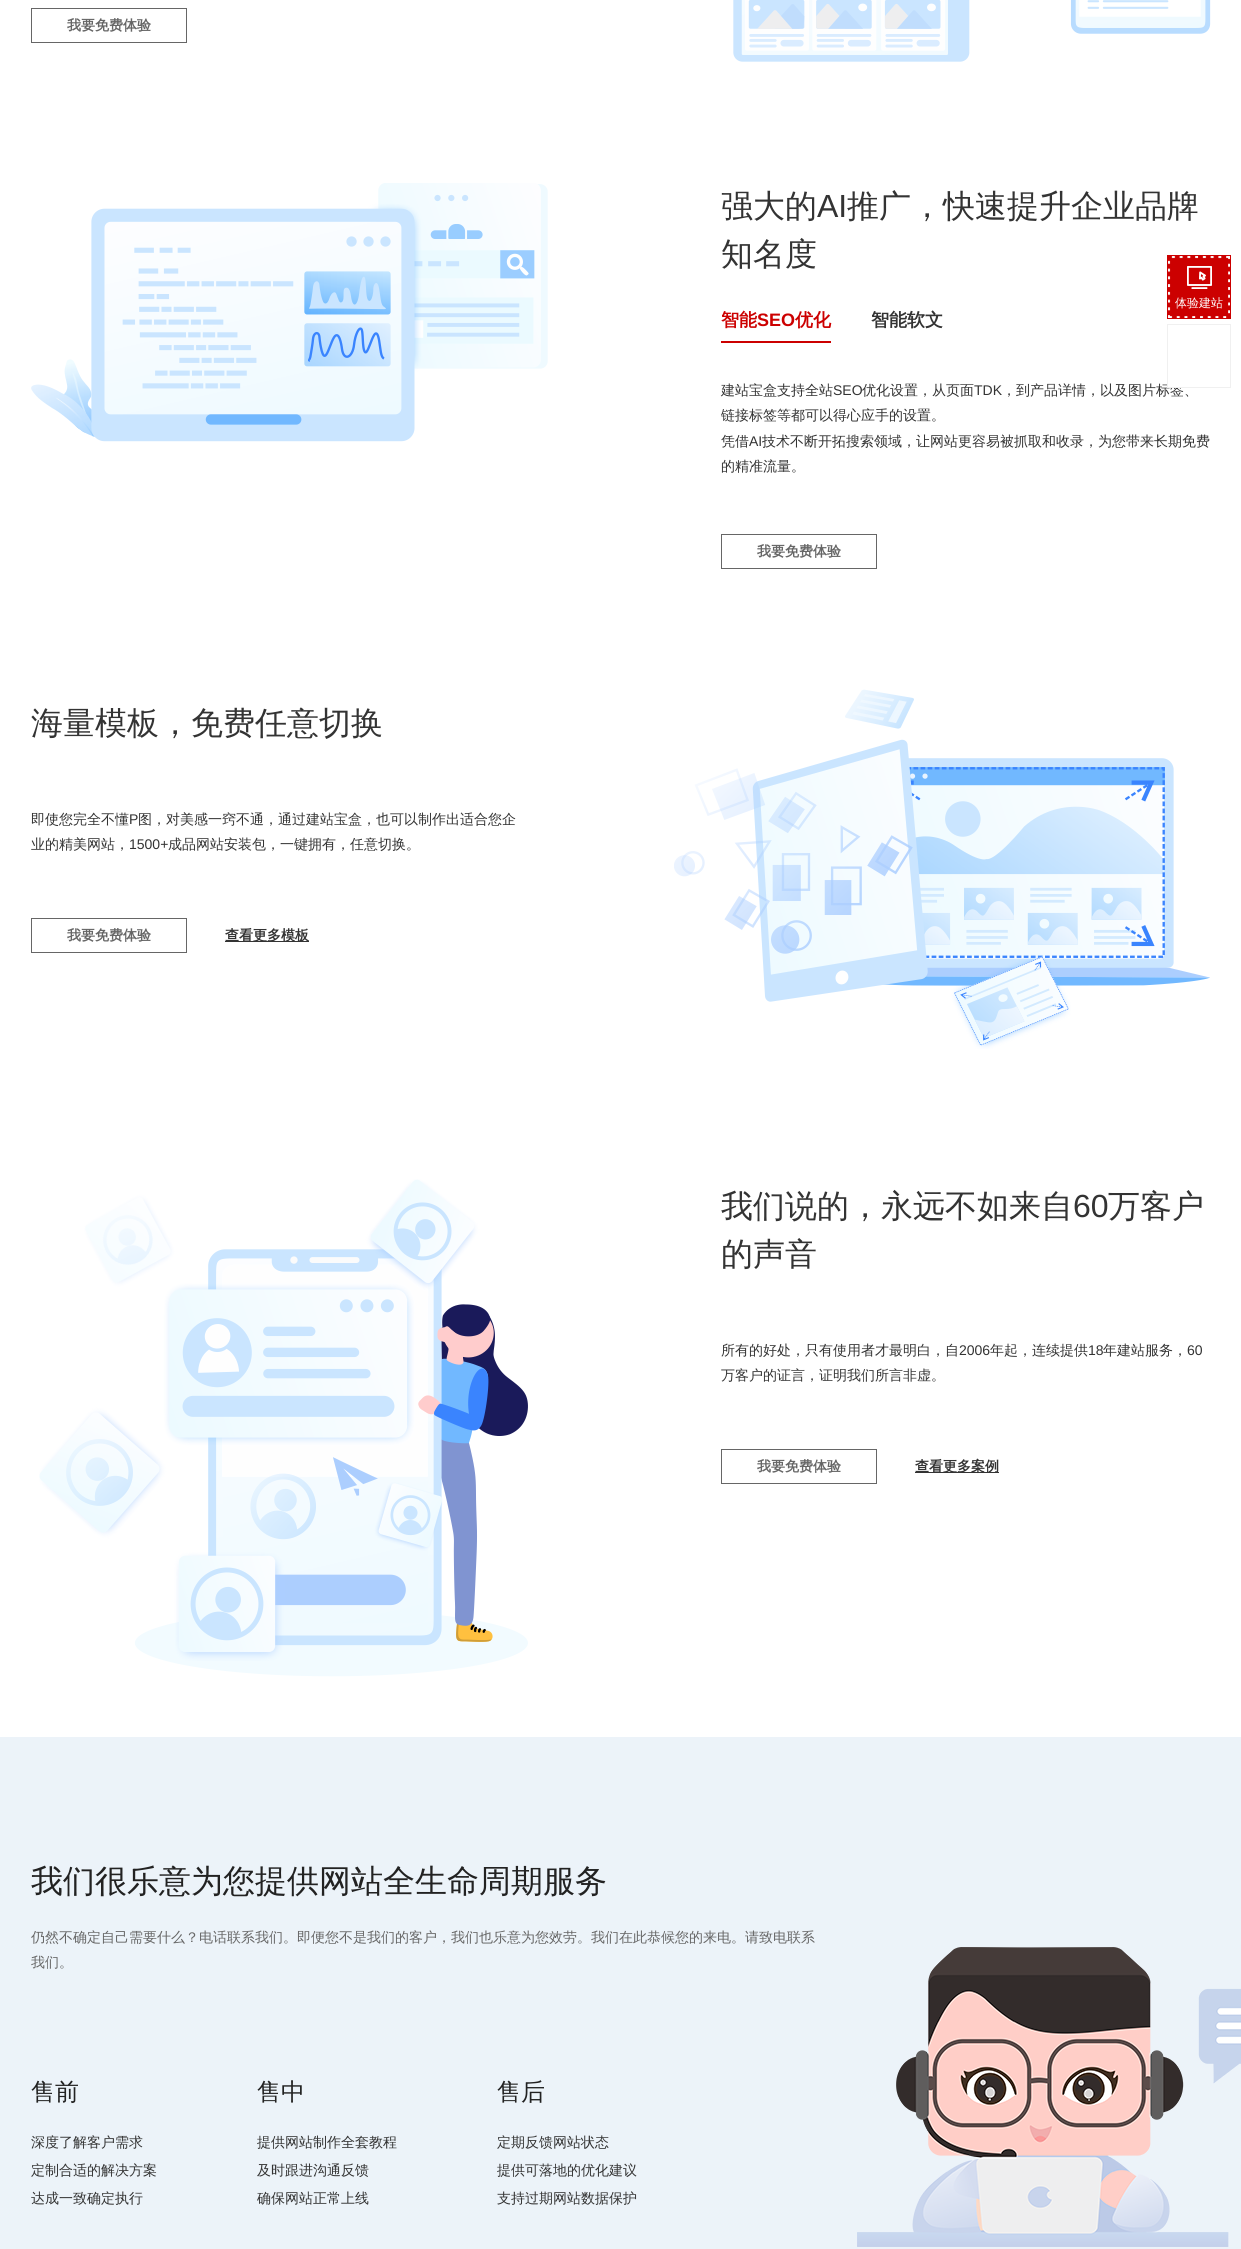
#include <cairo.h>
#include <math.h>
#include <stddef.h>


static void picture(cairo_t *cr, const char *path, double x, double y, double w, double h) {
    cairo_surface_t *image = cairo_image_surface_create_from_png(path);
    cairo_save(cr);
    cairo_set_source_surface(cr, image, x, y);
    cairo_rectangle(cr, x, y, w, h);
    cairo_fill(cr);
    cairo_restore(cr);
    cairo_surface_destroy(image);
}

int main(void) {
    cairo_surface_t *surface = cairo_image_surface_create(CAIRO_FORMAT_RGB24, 1241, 2249);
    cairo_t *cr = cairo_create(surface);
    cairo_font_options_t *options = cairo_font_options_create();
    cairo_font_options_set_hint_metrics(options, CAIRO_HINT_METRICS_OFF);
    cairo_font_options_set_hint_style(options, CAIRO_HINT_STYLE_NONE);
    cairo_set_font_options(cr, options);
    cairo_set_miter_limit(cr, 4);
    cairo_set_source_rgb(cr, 1, 1, 1);
    cairo_paint(cr);
    cairo_rectangle(cr, 31.5, 8.5, 155, 34);
    cairo_set_source_rgb(cr, 0.4, 0.4, 0.4);
    cairo_set_line_width(cr, 1);
    cairo_stroke(cr);
    cairo_select_font_face(cr, "WenQuanYi Zen Hei", CAIRO_FONT_SLANT_NORMAL, CAIRO_FONT_WEIGHT_BOLD);
    cairo_set_font_size(cr, 14);
    cairo_move_to(cr, 67, 30);
    cairo_show_text(cr, "我要免费体验");
    picture(cr, "img1.png", 733, 0, 478, 62);
    picture(cr, "img2.png", 31, 183, 517, 259);
    cairo_select_font_face(cr, "WenQuanYi Zen Hei Medium", CAIRO_FONT_SLANT_NORMAL, CAIRO_FONT_WEIGHT_NORMAL);
    cairo_set_font_size(cr, 32);
    cairo_set_source_rgb(cr, 0.2, 0.2, 0.2);
    cairo_move_to(cr, 721, 217);
    cairo_show_text(cr, "强大的");
    cairo_select_font_face(cr, "Liberation Sans", CAIRO_FONT_SLANT_NORMAL, CAIRO_FONT_WEIGHT_NORMAL);
    cairo_move_to(cr, 817, 217);
    cairo_show_text(cr, "AI");
    cairo_select_font_face(cr, "WenQuanYi Zen Hei Medium", CAIRO_FONT_SLANT_NORMAL, CAIRO_FONT_WEIGHT_NORMAL);
    cairo_move_to(cr, 847, 217);
    cairo_show_text(cr, "推广，快速提升企业品牌");
    cairo_move_to(cr, 721, 265);
    cairo_show_text(cr, "知名度");
    cairo_set_source_rgb(cr, 0.8, 0, 0);
    cairo_rectangle(cr, 721, 341, 110, 2);
    cairo_fill(cr);
    cairo_select_font_face(cr, "WenQuanYi Zen Hei", CAIRO_FONT_SLANT_NORMAL, CAIRO_FONT_WEIGHT_BOLD);
    cairo_set_font_size(cr, 18);
    cairo_move_to(cr, 721, 326);
    cairo_show_text(cr, "智能");
    cairo_select_font_face(cr, "Liberation Sans", CAIRO_FONT_SLANT_NORMAL, CAIRO_FONT_WEIGHT_BOLD);
    cairo_move_to(cr, 757, 326);
    cairo_show_text(cr, "SEO");
    cairo_select_font_face(cr, "WenQuanYi Zen Hei", CAIRO_FONT_SLANT_NORMAL, CAIRO_FONT_WEIGHT_BOLD);
    cairo_move_to(cr, 795, 326);
    cairo_show_text(cr, "优化");
    cairo_set_source_rgb(cr, 0.2, 0.2, 0.2);
    cairo_move_to(cr, 871, 326);
    cairo_show_text(cr, "智能软文");
    cairo_select_font_face(cr, "WenQuanYi Zen Hei Medium", CAIRO_FONT_SLANT_NORMAL, CAIRO_FONT_WEIGHT_NORMAL);
    cairo_set_font_size(cr, 14);
    cairo_move_to(cr, 721, 395);
    cairo_show_text(cr, "建站宝盒支持全站");
    cairo_select_font_face(cr, "Liberation Sans", CAIRO_FONT_SLANT_NORMAL, CAIRO_FONT_WEIGHT_NORMAL);
    cairo_move_to(cr, 833, 395);
    cairo_show_text(cr, "SEO");
    cairo_select_font_face(cr, "WenQuanYi Zen Hei Medium", CAIRO_FONT_SLANT_NORMAL, CAIRO_FONT_WEIGHT_NORMAL);
    cairo_move_to(cr, 862, 395);
    cairo_show_text(cr, "优化设置，从页面");
    cairo_select_font_face(cr, "Liberation Sans", CAIRO_FONT_SLANT_NORMAL, CAIRO_FONT_WEIGHT_NORMAL);
    cairo_move_to(cr, 974, 395);
    cairo_show_text(cr, "TDK");
    cairo_select_font_face(cr, "WenQuanYi Zen Hei Medium", CAIRO_FONT_SLANT_NORMAL, CAIRO_FONT_WEIGHT_NORMAL);
    cairo_move_to(cr, 1002, 395);
    cairo_show_text(cr, "，到产品详情，以及图片标签、");
    cairo_move_to(cr, 721, 420);
    cairo_show_text(cr, "链接标签等都可以得心应手的设置。");
    cairo_move_to(cr, 721, 446);
    cairo_show_text(cr, "凭借");
    cairo_select_font_face(cr, "Liberation Sans", CAIRO_FONT_SLANT_NORMAL, CAIRO_FONT_WEIGHT_NORMAL);
    cairo_move_to(cr, 749, 446);
    cairo_show_text(cr, "AI");
    cairo_select_font_face(cr, "WenQuanYi Zen Hei Medium", CAIRO_FONT_SLANT_NORMAL, CAIRO_FONT_WEIGHT_NORMAL);
    cairo_move_to(cr, 762, 446);
    cairo_show_text(cr, "技术不断开拓搜索领域，让网站更容易被抓取和收录，为您带来长期免费");
    cairo_move_to(cr, 721, 471);
    cairo_show_text(cr, "的精准流量。");
    cairo_rectangle(cr, 721.5, 534.5, 155, 34);
    cairo_set_source_rgb(cr, 0.4, 0.4, 0.4);
    cairo_stroke(cr);
    cairo_select_font_face(cr, "WenQuanYi Zen Hei", CAIRO_FONT_SLANT_NORMAL, CAIRO_FONT_WEIGHT_BOLD);
    cairo_move_to(cr, 757, 556);
    cairo_show_text(cr, "我要免费体验");
    cairo_set_source_rgb(cr, 0.8, 0, 0);
    cairo_rectangle(cr, 1168, 256, 62, 62);
    cairo_fill(cr);
    picture(cr, "img3.png", 1168, 256, 62, 62);
    cairo_rectangle(cr, 1167.5, 255.5, 63, 63);
    cairo_stroke(cr);
    picture(cr, "img4.png", 1187, 266, 25, 23);
    cairo_select_font_face(cr, "WenQuanYi Zen Hei Medium", CAIRO_FONT_SLANT_NORMAL, CAIRO_FONT_WEIGHT_NORMAL);
    cairo_set_font_size(cr, 12);
    cairo_set_source_rgb(cr, 1, 1, 1);
    cairo_move_to(cr, 1175, 307);
    cairo_show_text(cr, "体验建站");
    cairo_rectangle(cr, 1168, 383, 16, 4);
    cairo_fill(cr);
    cairo_rectangle(cr, 1167.5, 324.5, 63, 63);
    cairo_set_source_rgb(cr, 0.941, 0.941, 0.941);
    cairo_stroke(cr);
    cairo_set_font_size(cr, 32);
    cairo_set_source_rgb(cr, 0.2, 0.2, 0.2);
    cairo_move_to(cr, 31, 734);
    cairo_show_text(cr, "海量模板，免费任意切换");
    cairo_set_font_size(cr, 14);
    cairo_move_to(cr, 31, 824);
    cairo_show_text(cr, "即使您完全不懂");
    cairo_select_font_face(cr, "Liberation Sans", CAIRO_FONT_SLANT_NORMAL, CAIRO_FONT_WEIGHT_NORMAL);
    cairo_move_to(cr, 129, 824);
    cairo_show_text(cr, "P");
    cairo_select_font_face(cr, "WenQuanYi Zen Hei Medium", CAIRO_FONT_SLANT_NORMAL, CAIRO_FONT_WEIGHT_NORMAL);
    cairo_move_to(cr, 138, 824);
    cairo_show_text(cr, "图，对美感一窍不通，通过建站宝盒，也可以制作出适合您企");
    cairo_move_to(cr, 31, 849);
    cairo_show_text(cr, "业的精美网站，");
    cairo_select_font_face(cr, "Liberation Sans", CAIRO_FONT_SLANT_NORMAL, CAIRO_FONT_WEIGHT_NORMAL);
    cairo_move_to(cr, 129, 849);
    cairo_show_text(cr, "1500+");
    cairo_select_font_face(cr, "WenQuanYi Zen Hei Medium", CAIRO_FONT_SLANT_NORMAL, CAIRO_FONT_WEIGHT_NORMAL);
    cairo_move_to(cr, 168, 849);
    cairo_show_text(cr, "成品网站安装包，一键拥有，任意切换。");
    cairo_rectangle(cr, 31.5, 918.5, 155, 34);
    cairo_set_source_rgb(cr, 0.4, 0.4, 0.4);
    cairo_stroke(cr);
    cairo_select_font_face(cr, "WenQuanYi Zen Hei", CAIRO_FONT_SLANT_NORMAL, CAIRO_FONT_WEIGHT_BOLD);
    cairo_move_to(cr, 67, 940);
    cairo_show_text(cr, "我要免费体验");
    cairo_set_source_rgb(cr, 0.2, 0.2, 0.2);
    cairo_rectangle(cr, 225, 941, 84, 1);
    cairo_fill(cr);
    cairo_move_to(cr, 225, 940);
    cairo_show_text(cr, "查看更多模板");
    picture(cr, "img5.png", 674, 689, 536, 360);
    picture(cr, "img6.png", 39, 1179, 489, 498);
    cairo_select_font_face(cr, "WenQuanYi Zen Hei Medium", CAIRO_FONT_SLANT_NORMAL, CAIRO_FONT_WEIGHT_NORMAL);
    cairo_set_font_size(cr, 32);
    cairo_move_to(cr, 721, 1217);
    cairo_show_text(cr, "我们说的，永远不如来自");
    cairo_select_font_face(cr, "Liberation Sans", CAIRO_FONT_SLANT_NORMAL, CAIRO_FONT_WEIGHT_NORMAL);
    cairo_move_to(cr, 1073, 1217);
    cairo_show_text(cr, "60");
    cairo_select_font_face(cr, "WenQuanYi Zen Hei Medium", CAIRO_FONT_SLANT_NORMAL, CAIRO_FONT_WEIGHT_NORMAL);
    cairo_move_to(cr, 1108, 1217);
    cairo_show_text(cr, "万客户");
    cairo_move_to(cr, 721, 1265);
    cairo_show_text(cr, "的声音");
    cairo_set_font_size(cr, 14);
    cairo_move_to(cr, 721, 1355);
    cairo_show_text(cr, "所有的好处，只有使用者才最明白，自");
    cairo_select_font_face(cr, "Liberation Sans", CAIRO_FONT_SLANT_NORMAL, CAIRO_FONT_WEIGHT_NORMAL);
    cairo_move_to(cr, 959, 1355);
    cairo_show_text(cr, "2006");
    cairo_select_font_face(cr, "WenQuanYi Zen Hei Medium", CAIRO_FONT_SLANT_NORMAL, CAIRO_FONT_WEIGHT_NORMAL);
    cairo_move_to(cr, 990, 1355);
    cairo_show_text(cr, "年起，连续提供");
    cairo_select_font_face(cr, "Liberation Sans", CAIRO_FONT_SLANT_NORMAL, CAIRO_FONT_WEIGHT_NORMAL);
    cairo_move_to(cr, 1088, 1355);
    cairo_show_text(cr, "18");
    cairo_select_font_face(cr, "WenQuanYi Zen Hei Medium", CAIRO_FONT_SLANT_NORMAL, CAIRO_FONT_WEIGHT_NORMAL);
    cairo_move_to(cr, 1103, 1355);
    cairo_show_text(cr, "年建站服务，");
    cairo_select_font_face(cr, "Liberation Sans", CAIRO_FONT_SLANT_NORMAL, CAIRO_FONT_WEIGHT_NORMAL);
    cairo_move_to(cr, 1187, 1355);
    cairo_show_text(cr, "60");
    cairo_select_font_face(cr, "WenQuanYi Zen Hei Medium", CAIRO_FONT_SLANT_NORMAL, CAIRO_FONT_WEIGHT_NORMAL);
    cairo_move_to(cr, 721, 1380);
    cairo_show_text(cr, "万客户的证言，证明我们所言非虚。");
    cairo_rectangle(cr, 721.5, 1449.5, 155, 34);
    cairo_set_source_rgb(cr, 0.4, 0.4, 0.4);
    cairo_stroke(cr);
    cairo_select_font_face(cr, "WenQuanYi Zen Hei", CAIRO_FONT_SLANT_NORMAL, CAIRO_FONT_WEIGHT_BOLD);
    cairo_move_to(cr, 757, 1471);
    cairo_show_text(cr, "我要免费体验");
    cairo_set_source_rgb(cr, 0.2, 0.2, 0.2);
    cairo_rectangle(cr, 915, 1472, 84, 1);
    cairo_fill(cr);
    cairo_move_to(cr, 915, 1471);
    cairo_show_text(cr, "查看更多案例");
    cairo_set_source_rgb(cr, 0.925, 0.953, 0.976);
    cairo_rectangle(cr, 0, 1737, 1241, 512);
    cairo_fill(cr);
    cairo_select_font_face(cr, "WenQuanYi Zen Hei Medium", CAIRO_FONT_SLANT_NORMAL, CAIRO_FONT_WEIGHT_NORMAL);
    cairo_set_font_size(cr, 32);
    cairo_set_source_rgb(cr, 0.133, 0.133, 0.133);
    cairo_move_to(cr, 31, 1892);
    cairo_show_text(cr, "我们很乐意为您提供网站全生命周期服务");
    cairo_set_font_size(cr, 14);
    cairo_set_source_rgb(cr, 0.4, 0.4, 0.4);
    cairo_move_to(cr, 31, 1942);
    cairo_show_text(cr, "仍然不确定自己需要什么？电话联系我们。即便您不是我们的客户，我们也乐意为您效劳。我们在此恭候您的来电。请致电联系");
    cairo_move_to(cr, 31, 1967);
    cairo_show_text(cr, "我们。");
    cairo_set_font_size(cr, 24);
    cairo_set_source_rgb(cr, 0.133, 0.133, 0.133);
    cairo_move_to(cr, 31, 2100);
    cairo_show_text(cr, "售前");
    cairo_set_font_size(cr, 14);
    cairo_set_source_rgb(cr, 0.2, 0.2, 0.2);
    cairo_move_to(cr, 31, 2147);
    cairo_show_text(cr, "深度了解客户需求");
    cairo_move_to(cr, 31, 2175);
    cairo_show_text(cr, "定制合适的解决方案");
    cairo_move_to(cr, 31, 2203);
    cairo_show_text(cr, "达成一致确定执行");
    cairo_set_font_size(cr, 24);
    cairo_set_source_rgb(cr, 0.133, 0.133, 0.133);
    cairo_move_to(cr, 257, 2100);
    cairo_show_text(cr, "售中");
    cairo_set_font_size(cr, 14);
    cairo_set_source_rgb(cr, 0.2, 0.2, 0.2);
    cairo_move_to(cr, 257, 2147);
    cairo_show_text(cr, "提供网站制作全套教程");
    cairo_move_to(cr, 257, 2175);
    cairo_show_text(cr, "及时跟进沟通反馈");
    cairo_move_to(cr, 257, 2203);
    cairo_show_text(cr, "确保网站正常上线");
    cairo_set_font_size(cr, 24);
    cairo_set_source_rgb(cr, 0.133, 0.133, 0.133);
    cairo_move_to(cr, 497, 2100);
    cairo_show_text(cr, "售后");
    cairo_set_font_size(cr, 14);
    cairo_set_source_rgb(cr, 0.2, 0.2, 0.2);
    cairo_move_to(cr, 497, 2147);
    cairo_show_text(cr, "定期反馈网站状态");
    cairo_move_to(cr, 497, 2175);
    cairo_show_text(cr, "提供可落地的优化建议");
    cairo_move_to(cr, 497, 2203);
    cairo_show_text(cr, "支持过期网站数据保护");
    picture(cr, "img7.png", 857, 1947, 384, 300);
    cairo_surface_write_to_png(surface, "page.png");
    cairo_font_options_destroy(options);
    cairo_destroy(cr);
    cairo_surface_destroy(surface);
    return 0;
}
